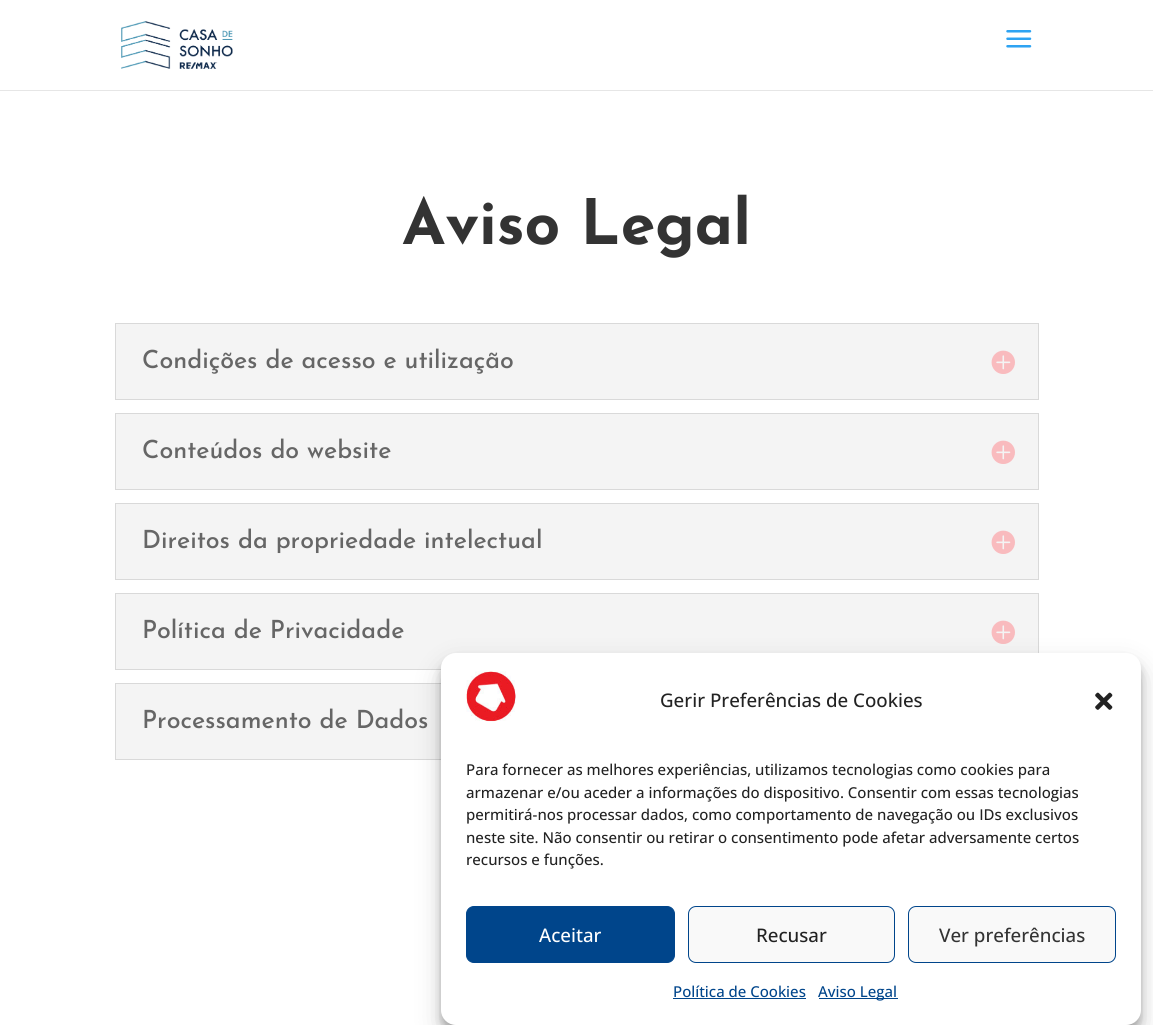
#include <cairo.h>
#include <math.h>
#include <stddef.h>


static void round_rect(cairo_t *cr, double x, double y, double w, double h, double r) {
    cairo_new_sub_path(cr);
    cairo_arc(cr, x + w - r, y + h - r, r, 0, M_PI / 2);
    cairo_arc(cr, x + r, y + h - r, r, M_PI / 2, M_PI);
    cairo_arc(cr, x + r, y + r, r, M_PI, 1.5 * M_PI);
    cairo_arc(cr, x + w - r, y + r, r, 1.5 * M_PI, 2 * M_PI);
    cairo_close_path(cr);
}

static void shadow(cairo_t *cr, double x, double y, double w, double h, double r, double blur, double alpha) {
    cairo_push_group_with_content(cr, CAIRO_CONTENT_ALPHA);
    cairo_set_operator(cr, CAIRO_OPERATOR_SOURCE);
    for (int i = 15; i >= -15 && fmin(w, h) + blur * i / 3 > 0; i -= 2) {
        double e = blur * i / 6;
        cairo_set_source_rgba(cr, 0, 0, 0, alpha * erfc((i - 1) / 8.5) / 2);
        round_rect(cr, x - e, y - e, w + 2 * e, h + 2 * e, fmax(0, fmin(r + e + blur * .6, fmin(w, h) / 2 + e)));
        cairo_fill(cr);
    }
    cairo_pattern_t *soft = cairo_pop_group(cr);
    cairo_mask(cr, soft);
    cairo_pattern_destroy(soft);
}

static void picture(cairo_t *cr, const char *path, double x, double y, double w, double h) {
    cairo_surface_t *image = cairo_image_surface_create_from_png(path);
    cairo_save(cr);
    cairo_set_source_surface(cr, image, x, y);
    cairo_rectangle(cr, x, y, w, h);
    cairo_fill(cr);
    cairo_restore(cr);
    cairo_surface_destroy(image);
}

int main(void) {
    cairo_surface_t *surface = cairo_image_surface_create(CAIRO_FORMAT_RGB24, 1153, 1025);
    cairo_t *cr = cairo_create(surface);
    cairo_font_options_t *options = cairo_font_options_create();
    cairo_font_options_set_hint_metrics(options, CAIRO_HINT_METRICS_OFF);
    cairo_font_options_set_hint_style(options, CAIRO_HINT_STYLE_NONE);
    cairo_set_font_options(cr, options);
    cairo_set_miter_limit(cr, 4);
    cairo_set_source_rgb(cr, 1, 1, 1);
    cairo_paint(cr);
    cairo_set_source_rgb(cr, 0.902, 0.902, 0.902);
    cairo_new_path(cr);
    cairo_move_to(cr, 0, 90);
    cairo_line_to(cr, 0, 91);
    cairo_line_to(cr, 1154, 91);
    cairo_line_to(cr, 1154, 1);
    cairo_line_to(cr, 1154, 90);
    cairo_close_path(cr);
    cairo_fill(cr);
    picture(cr, "img1.png", 121, 21, 112, 48);
    picture(cr, "img2.png", 1006, 30, 26, 18);
    cairo_select_font_face(cr, "Josefin Sans", CAIRO_FONT_SLANT_NORMAL, CAIRO_FONT_WEIGHT_BOLD);
    cairo_set_font_size(cr, 62.5);
    cairo_set_source_rgb(cr, 0.2, 0.2, 0.2);
    cairo_move_to(cr, 402, 244);
    cairo_show_text(cr, "Aviso Legal");
    cairo_set_source_rgb(cr, 0.957, 0.957, 0.957);
    cairo_rectangle(cr, 115.5, 323.5, 923, 76);
    cairo_fill_preserve(cr);
    cairo_set_source_rgb(cr, 0.851, 0.851, 0.851);
    cairo_set_line_width(cr, 1);
    cairo_stroke(cr);
    cairo_select_font_face(cr, "Josefin Sans Medium", CAIRO_FONT_SLANT_NORMAL, CAIRO_FONT_WEIGHT_NORMAL);
    cairo_set_font_size(cr, 25);
    cairo_set_source_rgb(cr, 0.4, 0.4, 0.4);
    cairo_move_to(cr, 142, 368);
    cairo_show_text(cr, "Condições de acesso e utilização");
    picture(cr, "img3.png", 991, 350, 24, 24);
    cairo_set_source_rgb(cr, 0.957, 0.957, 0.957);
    cairo_rectangle(cr, 115.5, 413.5, 923, 76);
    cairo_fill_preserve(cr);
    cairo_set_source_rgb(cr, 0.851, 0.851, 0.851);
    cairo_stroke(cr);
    cairo_set_source_rgb(cr, 0.4, 0.4, 0.4);
    cairo_move_to(cr, 142, 458);
    cairo_show_text(cr, "Conteúdos do website");
    picture(cr, "img3.png", 991, 440, 24, 24);
    cairo_set_source_rgb(cr, 0.957, 0.957, 0.957);
    cairo_rectangle(cr, 115.5, 503.5, 923, 76);
    cairo_fill_preserve(cr);
    cairo_set_source_rgb(cr, 0.851, 0.851, 0.851);
    cairo_stroke(cr);
    cairo_set_source_rgb(cr, 0.4, 0.4, 0.4);
    cairo_move_to(cr, 142, 548);
    cairo_show_text(cr, "Direitos da propriedade intelectual");
    picture(cr, "img3.png", 991, 530, 24, 24);
    cairo_set_source_rgb(cr, 0.957, 0.957, 0.957);
    cairo_rectangle(cr, 115.5, 593.5, 923, 76);
    cairo_fill_preserve(cr);
    cairo_set_source_rgb(cr, 0.851, 0.851, 0.851);
    cairo_stroke(cr);
    cairo_set_source_rgb(cr, 0.4, 0.4, 0.4);
    cairo_move_to(cr, 142, 638);
    cairo_show_text(cr, "Política de Privacidade");
    picture(cr, "img3.png", 991, 620, 24, 24);
    cairo_set_source_rgb(cr, 0.957, 0.957, 0.957);
    cairo_rectangle(cr, 116, 684, 325, 75);
    cairo_fill(cr);
    cairo_rectangle(cr, 115.5, 683.5, 923, 76);
    cairo_set_source_rgb(cr, 0.851, 0.851, 0.851);
    cairo_stroke(cr);
    cairo_set_source_rgb(cr, 0.4, 0.4, 0.4);
    cairo_move_to(cr, 142, 728);
    cairo_show_text(cr, "Processamento de Dados");
    cairo_set_source_rgb(cr, 0, 0, 0);
    shadow(cr, 441, 660, 700, 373, 15, 4, 0.23);
    shadow(cr, 441, 665, 700, 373, 15, 12.5, 0.19);
    cairo_set_source_rgb(cr, 1, 1, 1);
    round_rect(cr, 441, 653, 700, 372, 15);
    cairo_fill(cr);
    picture(cr, "img4.png", 466, 671, 50, 51);
    cairo_select_font_face(cr, "Open Sans Medium", CAIRO_FONT_SLANT_NORMAL, CAIRO_FONT_WEIGHT_NORMAL);
    cairo_set_font_size(cr, 18.75);
    cairo_set_source_rgb(cr, 0.133, 0.133, 0.133);
    cairo_move_to(cr, 660, 707);
    cairo_show_text(cr, "Gerir Preferências de Cookies");
    picture(cr, "img5.png", 1095, 692, 18, 18);
    cairo_set_font_size(cr, 15);
    cairo_move_to(cr, 466, 775);
    cairo_show_text(cr, "Para fornecer as melhores experiências, utilizamos tecnologias como cookies para");
    cairo_move_to(cr, 466, 798);
    cairo_show_text(cr, "armazenar e/ou aceder a informações do dispositivo. Consentir com essas tecnologias");
    cairo_move_to(cr, 466, 820);
    cairo_show_text(cr, "permitirá-nos processar dados, como comportamento de navegação ou IDs exclusivos");
    cairo_move_to(cr, 466, 843);
    cairo_show_text(cr, "neste site. Não consentir ou retirar o consentimento pode afetar adversamente certos");
    cairo_move_to(cr, 466, 865);
    cairo_show_text(cr, "recursos e funções.");
    cairo_set_source_rgb(cr, 0, 0.271, 0.545);
    round_rect(cr, 466.5, 906.5, 208, 56, 7.5);
    cairo_fill_preserve(cr);
    cairo_stroke(cr);
    cairo_set_font_size(cr, 18.75);
    cairo_set_source_rgb(cr, 1, 1, 1);
    cairo_move_to(cr, 539, 942);
    cairo_show_text(cr, "Aceitar");
    cairo_set_source_rgb(cr, 0.976, 0.976, 0.976);
    round_rect(cr, 688.5, 906.5, 206, 56, 7.5);
    cairo_fill_preserve(cr);
    cairo_set_source_rgb(cr, 0, 0.271, 0.545);
    cairo_stroke(cr);
    cairo_set_source_rgb(cr, 0.133, 0.133, 0.133);
    cairo_move_to(cr, 756, 942);
    cairo_show_text(cr, "Recusar");
    cairo_set_source_rgb(cr, 0.976, 0.976, 0.976);
    round_rect(cr, 908.5, 906.5, 207, 56, 7.5);
    cairo_fill_preserve(cr);
    cairo_set_source_rgb(cr, 0, 0.271, 0.545);
    cairo_stroke(cr);
    cairo_set_source_rgb(cr, 0.2, 0.2, 0.2);
    cairo_move_to(cr, 939, 942);
    cairo_show_text(cr, "Ver preferências");
    cairo_set_font_size(cr, 15);
    cairo_set_source_rgb(cr, 0, 0.271, 0.545);
    cairo_move_to(cr, 673, 997);
    cairo_show_text(cr, "Política de Cookies");
    cairo_rectangle(cr, 673, 998, 133, 1);
    cairo_fill(cr);
    cairo_rectangle(cr, 819, 998, 79, 1);
    cairo_fill(cr);
    cairo_move_to(cr, 818, 997);
    cairo_show_text(cr, "Aviso Legal");
    cairo_surface_write_to_png(surface, "page.png");
    cairo_font_options_destroy(options);
    cairo_destroy(cr);
    cairo_surface_destroy(surface);
    return 0;
}
